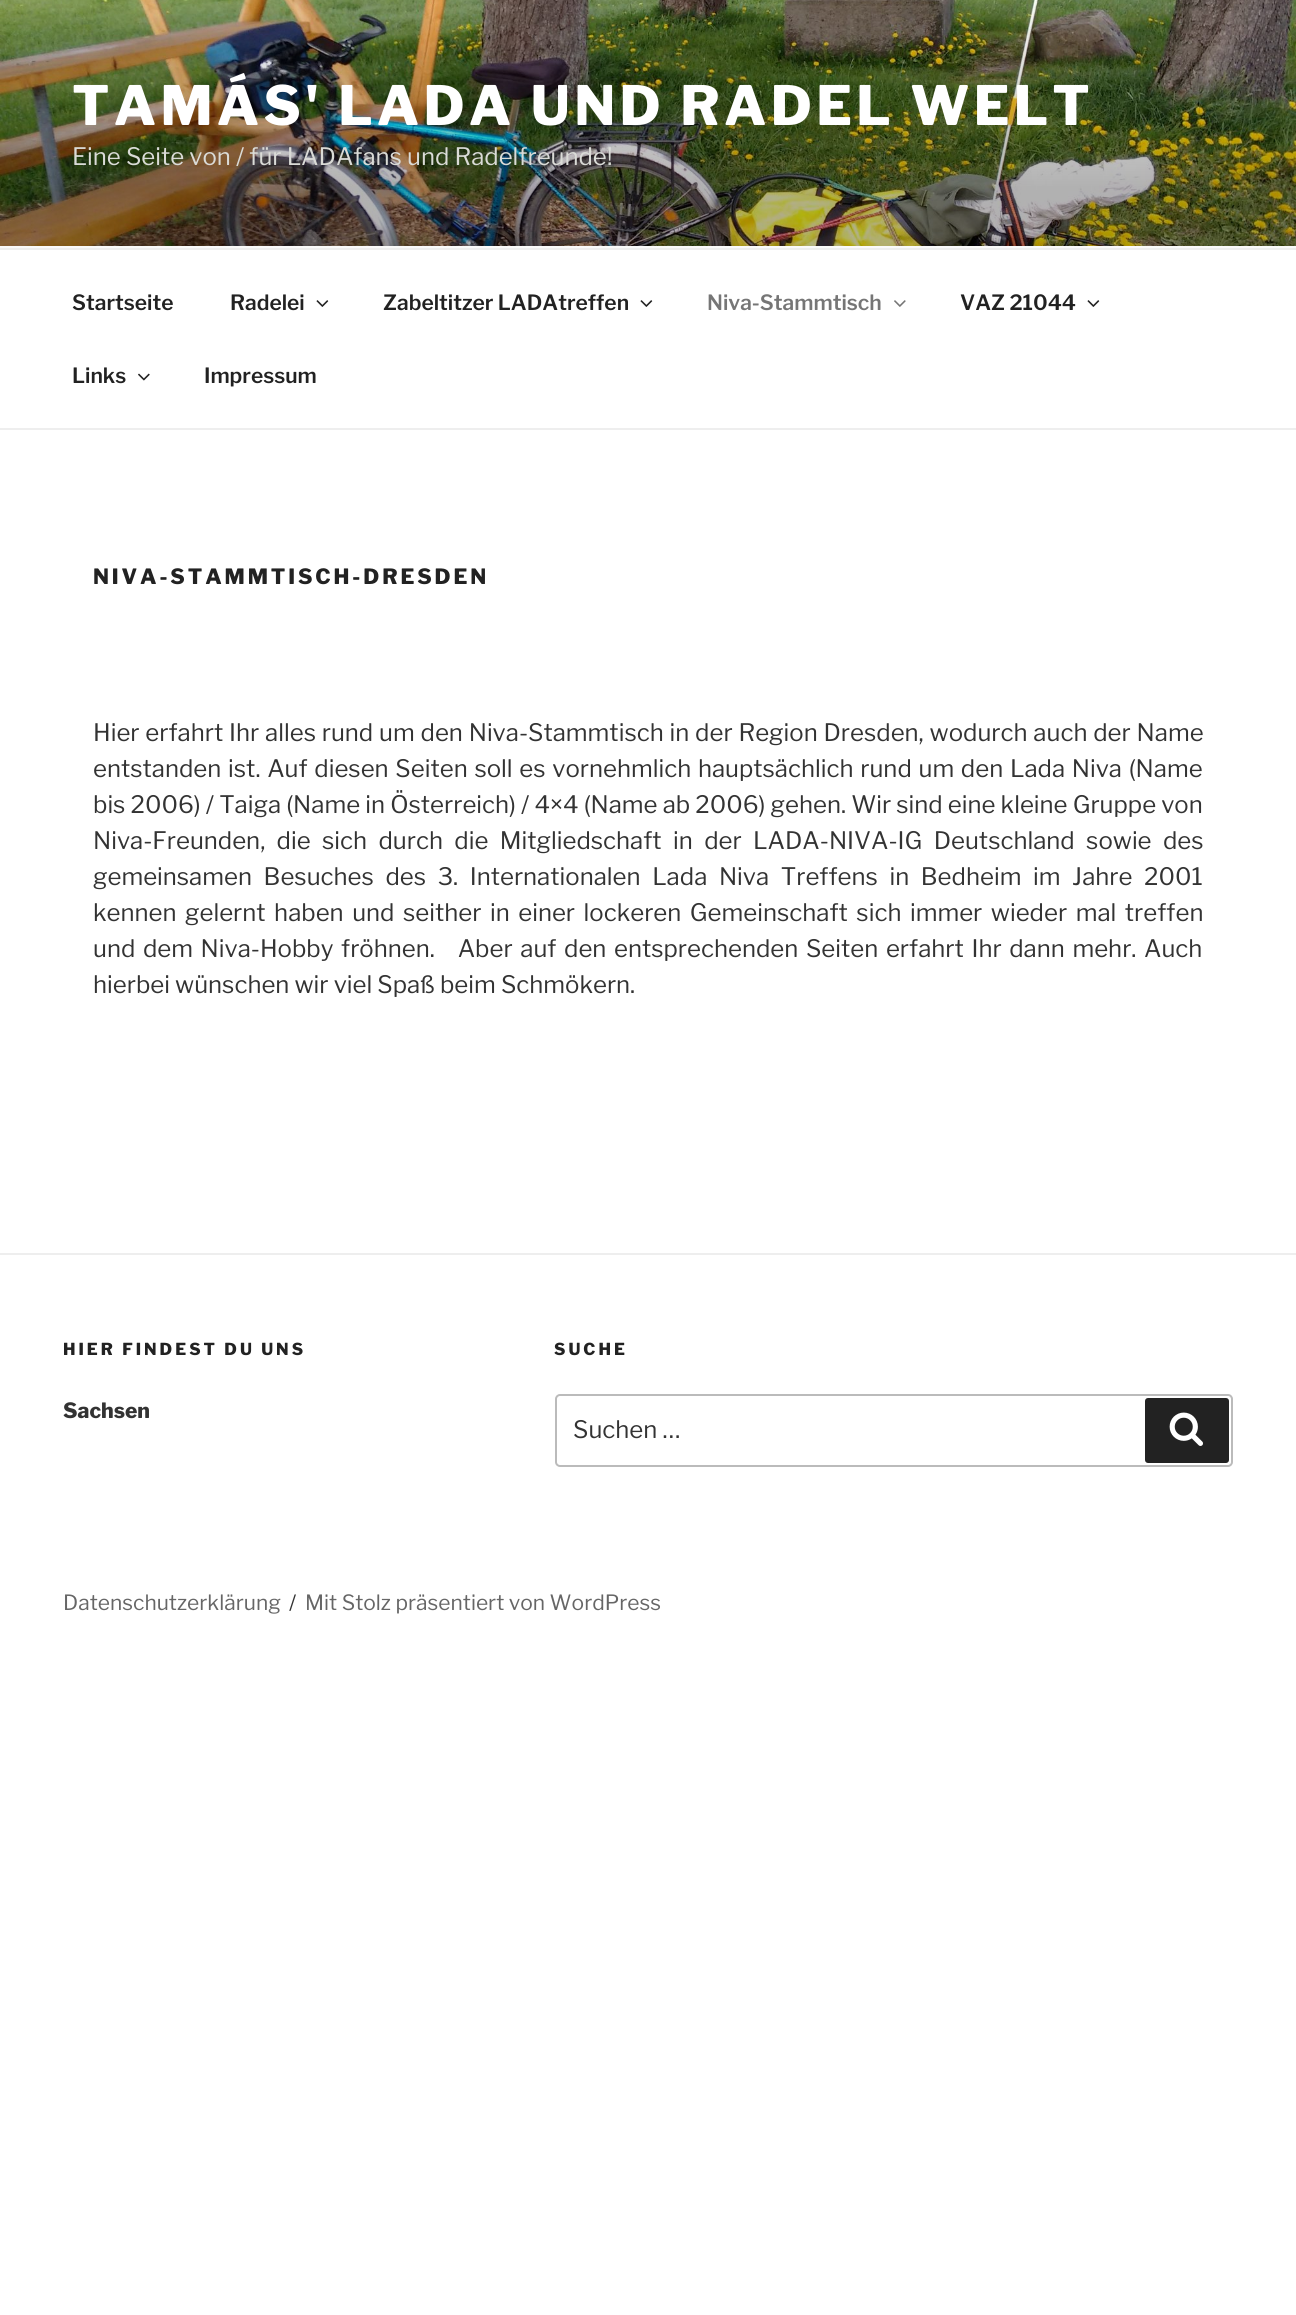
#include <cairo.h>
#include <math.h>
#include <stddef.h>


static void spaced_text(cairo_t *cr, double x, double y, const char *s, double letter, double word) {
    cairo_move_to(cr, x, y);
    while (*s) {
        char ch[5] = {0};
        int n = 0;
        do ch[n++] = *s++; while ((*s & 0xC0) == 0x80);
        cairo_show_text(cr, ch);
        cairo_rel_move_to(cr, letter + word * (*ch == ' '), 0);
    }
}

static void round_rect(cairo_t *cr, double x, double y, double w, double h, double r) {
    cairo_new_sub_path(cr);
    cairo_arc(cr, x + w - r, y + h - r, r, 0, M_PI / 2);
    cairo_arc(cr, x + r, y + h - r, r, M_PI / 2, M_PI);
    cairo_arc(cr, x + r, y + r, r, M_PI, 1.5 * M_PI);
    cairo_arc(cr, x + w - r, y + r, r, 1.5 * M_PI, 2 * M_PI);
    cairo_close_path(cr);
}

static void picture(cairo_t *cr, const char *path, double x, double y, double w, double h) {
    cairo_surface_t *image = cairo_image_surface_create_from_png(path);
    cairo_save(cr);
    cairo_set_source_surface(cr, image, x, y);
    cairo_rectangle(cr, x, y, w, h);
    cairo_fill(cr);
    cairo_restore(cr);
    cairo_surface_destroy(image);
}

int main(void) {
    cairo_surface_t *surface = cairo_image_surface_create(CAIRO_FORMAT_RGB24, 1296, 2315);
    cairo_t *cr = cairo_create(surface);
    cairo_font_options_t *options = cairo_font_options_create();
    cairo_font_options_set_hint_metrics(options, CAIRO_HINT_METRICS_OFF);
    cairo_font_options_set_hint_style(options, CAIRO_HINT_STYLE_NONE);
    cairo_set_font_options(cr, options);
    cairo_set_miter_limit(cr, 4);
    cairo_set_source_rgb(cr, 1, 1, 1);
    cairo_paint(cr);
    cairo_set_source_rgb(cr, 0.98, 0.98, 0.98);
    cairo_rectangle(cr, 0, 246, 1296, 2);
    cairo_fill(cr);
    picture(cr, "img1.png", 0, 0, 1296, 246);
    cairo_select_font_face(cr, "Libre Franklin Thin", CAIRO_FONT_SLANT_NORMAL, CAIRO_FONT_WEIGHT_NORMAL);
    cairo_set_font_size(cr, 54);
    cairo_set_source_rgb(cr, 1, 1, 1);
    spaced_text(cr, 72, 125, "TAMÁS' LADA UND RADEL WELT", 4.3, 0);
    cairo_select_font_face(cr, "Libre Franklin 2 Thin", CAIRO_FONT_SLANT_NORMAL, CAIRO_FONT_WEIGHT_NORMAL);
    cairo_set_font_size(cr, 24);
    cairo_set_source_rgb(cr, 0.855, 0.859, 0.843);
    cairo_move_to(cr, 72, 165);
    cairo_show_text(cr, "Eine Seite von / für LADAfans und Radelfreunde!");
    cairo_set_source_rgb(cr, 0.933, 0.933, 0.933);
    cairo_rectangle(cr, 0, 248, 1296, 2);
    cairo_fill(cr);
    cairo_rectangle(cr, 0, 428, 1296, 2);
    cairo_fill(cr);
    cairo_select_font_face(cr, "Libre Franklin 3 Thin", CAIRO_FONT_SLANT_NORMAL, CAIRO_FONT_WEIGHT_NORMAL);
    cairo_set_font_size(cr, 21);
    cairo_set_source_rgb(cr, 0.133, 0.133, 0.133);
    cairo_move_to(cr, 72, 310);
    cairo_show_text(cr, "Startseite");
    cairo_move_to(cr, 230, 310);
    cairo_show_text(cr, "Radelei");
    picture(cr, "img2.png", 316, 300, 13, 7);
    cairo_move_to(cr, 383, 310);
    cairo_show_text(cr, "Zabeltitzer LADAtreffen");
    picture(cr, "img2.png", 640, 300, 13, 7);
    cairo_set_source_rgb(cr, 0.463, 0.463, 0.463);
    cairo_move_to(cr, 707, 310);
    cairo_show_text(cr, "Niva-Stammtisch");
    picture(cr, "img3.png", 894, 300, 12, 7);
    cairo_set_source_rgb(cr, 0.133, 0.133, 0.133);
    cairo_move_to(cr, 960, 310);
    cairo_show_text(cr, "VAZ 21044");
    picture(cr, "img2.png", 1087, 300, 13, 7);
    cairo_move_to(cr, 72, 383);
    cairo_show_text(cr, "Links");
    picture(cr, "img4.png", 138, 373, 12, 8);
    cairo_move_to(cr, 204, 383);
    cairo_show_text(cr, "Impressum");
    cairo_select_font_face(cr, "Libre Franklin Thin", CAIRO_FONT_SLANT_NORMAL, CAIRO_FONT_WEIGHT_NORMAL);
    spaced_text(cr, 93, 584, "NIVA-STAMMTISCH-DRESDEN", 2.9, 0);
    cairo_select_font_face(cr, "Libre Franklin 2 Thin", CAIRO_FONT_SLANT_NORMAL, CAIRO_FONT_WEIGHT_NORMAL);
    cairo_set_font_size(cr, 24);
    cairo_set_source_rgb(cr, 0.2, 0.2, 0.2);
    spaced_text(cr, 93, 741, "Hier erfahrt Ihr alles rund um den Niva-Stammtisch in der Region Dresden, wodurch auch der Name", 0, 0.7);
    spaced_text(cr, 93, 777, "entstanden ist. Auf diesen Seiten soll es vornehmlich hauptsächlich rund um den Lada Niva (Name", 0, 1.6);
    cairo_move_to(cr, 93, 813);
    cairo_show_text(cr, "bis 2006) / Taiga (Name in Österreich) / 4×4 (Name ab 2006) gehen. Wir sind eine kleine Gruppe von");
    spaced_text(cr, 93, 849, "Niva-Freunden, die sich durch die Mitgliedschaft in der LADA-NIVA-IG Deutschland sowie des", 0, 6.25);
    spaced_text(cr, 93, 885, "gemeinsamen Besuches des 3. Internationalen Lada Niva Treffens in Bedheim im Jahre 2001", 0, 6.5);
    spaced_text(cr, 93, 921, "kennen gelernt haben und seither in einer lockeren Gemeinschaft sich immer wieder mal treffen", 0, 3.4);
    spaced_text(cr, 93, 957, "und dem Niva-Hobby fröhnen.   Aber auf den entsprechenden Seiten erfahrt Ihr dann mehr. Auch", 0, 2.5);
    cairo_move_to(cr, 93, 993);
    cairo_show_text(cr, "hierbei wünschen wir viel Spaß beim Schmökern.");
    cairo_set_source_rgb(cr, 0.933, 0.933, 0.933);
    cairo_rectangle(cr, 0, 1253, 1296, 2);
    cairo_fill(cr);
    cairo_select_font_face(cr, "Libre Franklin Thin", CAIRO_FONT_SLANT_NORMAL, CAIRO_FONT_WEIGHT_NORMAL);
    cairo_set_font_size(cr, 16.5);
    cairo_set_source_rgb(cr, 0.133, 0.133, 0.133);
    spaced_text(cr, 63, 1355, "HIER FINDEST DU UNS", 3, 0);
    cairo_set_font_size(cr, 21);
    cairo_set_source_rgb(cr, 0.2, 0.2, 0.2);
    cairo_move_to(cr, 63, 1418);
    cairo_show_text(cr, "Sachsen");
    cairo_set_font_size(cr, 16.5);
    cairo_set_source_rgb(cr, 0.133, 0.133, 0.133);
    spaced_text(cr, 554, 1355, "SUCHE", 3, 0);
    round_rect(cr, 556, 1395, 676, 71, 4);
    cairo_set_source_rgb(cr, 0.733, 0.733, 0.733);
    cairo_stroke(cr);
    cairo_select_font_face(cr, "Libre Franklin 2 Thin", CAIRO_FONT_SLANT_NORMAL, CAIRO_FONT_WEIGHT_NORMAL);
    cairo_set_font_size(cr, 24);
    cairo_set_source_rgb(cr, 0.2, 0.2, 0.2);
    cairo_move_to(cr, 573, 1438);
    cairo_show_text(cr, "Suchen …");
    cairo_set_source_rgb(cr, 0.133, 0.133, 0.133);
    round_rect(cr, 1145, 1398, 84, 65, 3);
    cairo_fill(cr);
    picture(cr, "img5.png", 1169, 1412, 34, 34);
    cairo_set_font_size(cr, 21);
    cairo_set_source_rgb(cr, 0.4, 0.4, 0.4);
    cairo_move_to(cr, 63, 1610);
    cairo_show_text(cr, "Datenschutzerklärung");
    cairo_set_source_rgb(cr, 0.2, 0.2, 0.2);
    cairo_move_to(cr, 289, 1610);
    cairo_show_text(cr, "/");
    cairo_set_source_rgb(cr, 0.4, 0.4, 0.4);
    cairo_move_to(cr, 305, 1610);
    cairo_show_text(cr, "Mit Stolz präsentiert von WordPress");
    cairo_surface_write_to_png(surface, "page.png");
    cairo_font_options_destroy(options);
    cairo_destroy(cr);
    cairo_surface_destroy(surface);
    return 0;
}
